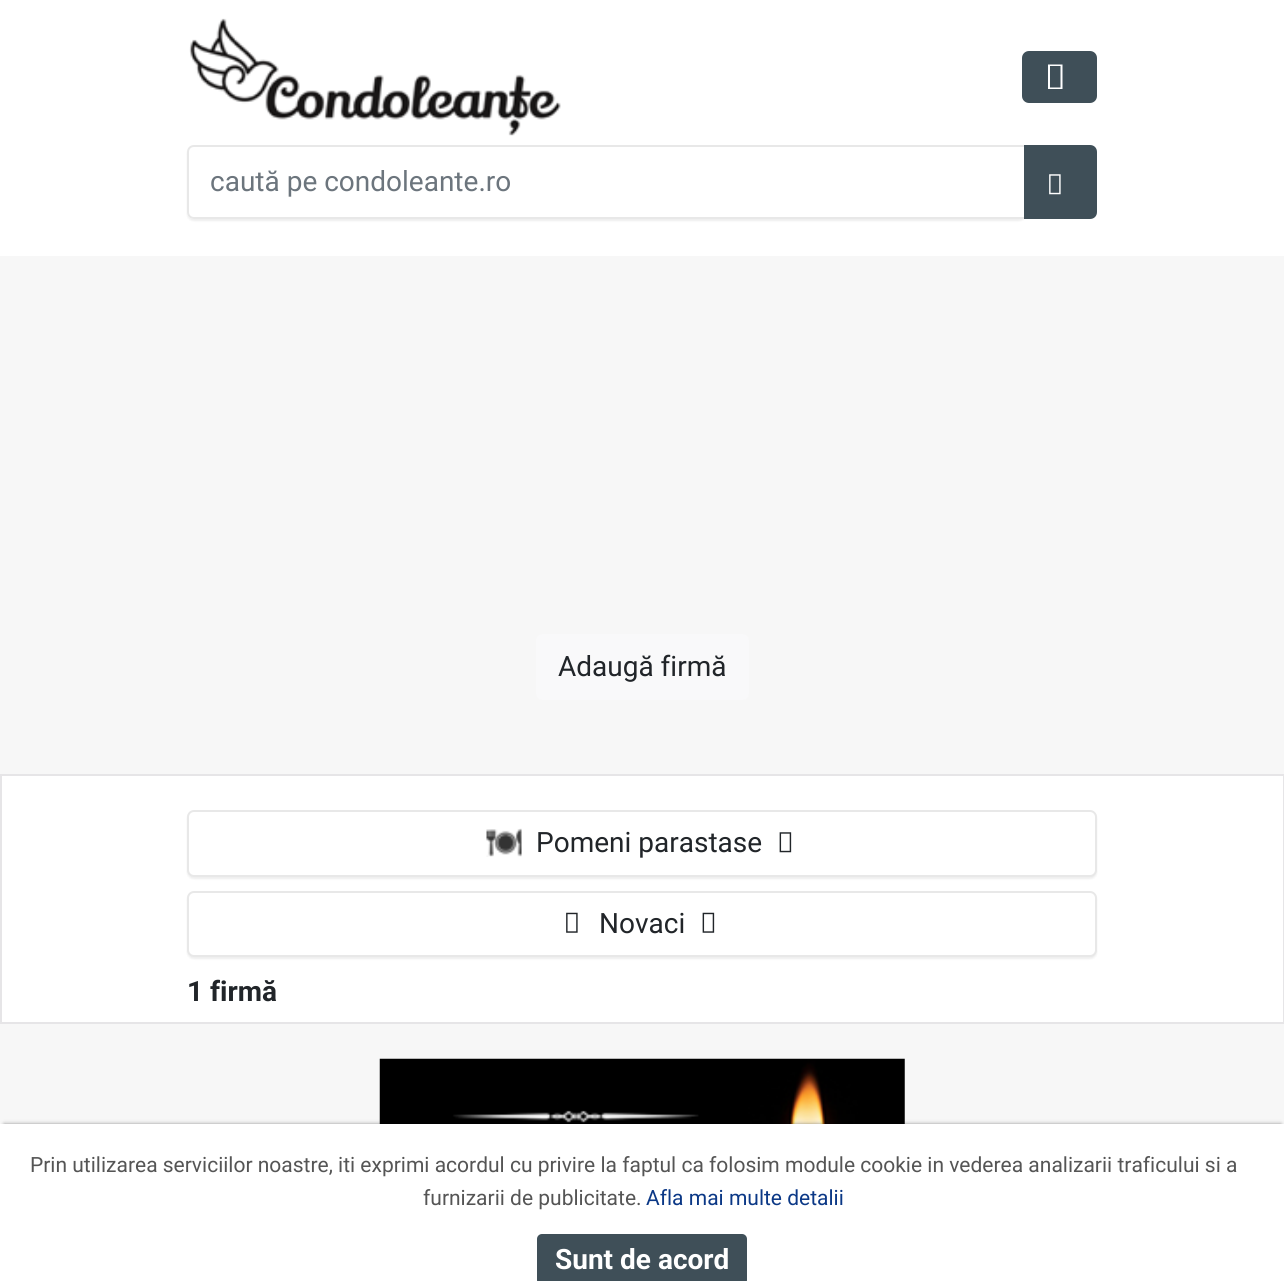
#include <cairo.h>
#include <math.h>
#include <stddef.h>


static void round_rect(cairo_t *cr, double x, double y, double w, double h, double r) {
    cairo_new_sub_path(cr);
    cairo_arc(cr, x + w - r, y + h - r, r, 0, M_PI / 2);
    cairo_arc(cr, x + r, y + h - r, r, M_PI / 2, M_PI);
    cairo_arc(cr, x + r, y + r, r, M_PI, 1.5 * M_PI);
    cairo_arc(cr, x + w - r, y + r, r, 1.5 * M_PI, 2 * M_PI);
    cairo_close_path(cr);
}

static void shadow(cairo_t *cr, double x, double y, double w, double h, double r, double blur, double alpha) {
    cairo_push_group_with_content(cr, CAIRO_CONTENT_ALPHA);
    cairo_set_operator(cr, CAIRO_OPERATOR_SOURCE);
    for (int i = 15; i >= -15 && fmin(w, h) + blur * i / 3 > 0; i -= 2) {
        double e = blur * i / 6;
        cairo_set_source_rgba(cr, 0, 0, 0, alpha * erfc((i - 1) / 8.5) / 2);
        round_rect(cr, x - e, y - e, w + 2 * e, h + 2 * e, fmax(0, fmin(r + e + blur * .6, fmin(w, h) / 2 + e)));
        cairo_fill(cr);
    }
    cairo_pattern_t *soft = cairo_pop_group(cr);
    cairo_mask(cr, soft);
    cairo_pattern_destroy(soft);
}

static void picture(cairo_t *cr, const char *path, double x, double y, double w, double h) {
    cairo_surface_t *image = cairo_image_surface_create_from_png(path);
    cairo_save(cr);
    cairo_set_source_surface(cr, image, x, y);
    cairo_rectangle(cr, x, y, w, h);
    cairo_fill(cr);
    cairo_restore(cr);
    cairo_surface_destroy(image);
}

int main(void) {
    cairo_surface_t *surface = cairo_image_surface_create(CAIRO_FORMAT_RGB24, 1284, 1281);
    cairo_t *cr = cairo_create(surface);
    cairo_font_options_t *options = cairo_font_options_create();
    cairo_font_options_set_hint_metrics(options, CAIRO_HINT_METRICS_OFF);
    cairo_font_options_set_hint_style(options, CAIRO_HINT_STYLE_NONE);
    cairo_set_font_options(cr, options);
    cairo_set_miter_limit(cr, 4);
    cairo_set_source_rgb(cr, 0.965, 0.965, 0.965);
    cairo_paint(cr);
    cairo_set_source_rgb(cr, 1, 1, 1);
    cairo_rectangle(cr, 0, 0, 1284, 256);
    cairo_fill(cr);
    picture(cr, "img1.png", 189, 18, 372, 118);
    cairo_set_source_rgb(cr, 0.247, 0.31, 0.345);
    round_rect(cr, 1022, 51, 75, 52, 7);
    cairo_fill(cr);
    cairo_set_source_rgb(cr, 1, 1, 1);
    cairo_new_path(cr);
    cairo_move_to(cr, 1048, 89);
    cairo_line_to(cr, 1048, 64.5);
    cairo_line_to(cr, 1062.5, 64.5);
    cairo_line_to(cr, 1062.5, 89);
    cairo_close_path(cr);
    cairo_move_to(cr, 1050, 87.5);
    cairo_line_to(cr, 1060.5, 87.5);
    cairo_line_to(cr, 1060.5, 66);
    cairo_line_to(cr, 1050, 66);
    cairo_close_path(cr);
    cairo_fill(cr);
    cairo_save(cr);
    cairo_set_fill_rule(cr, CAIRO_FILL_RULE_EVEN_ODD);
    cairo_new_path(cr);
    cairo_move_to(cr, 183, 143);
    cairo_line_to(cr, 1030, 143);
    cairo_line_to(cr, 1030, 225);
    cairo_line_to(cr, 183, 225);
    cairo_close_path(cr);
    cairo_move_to(cr, 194, 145);
    cairo_line_to(cr, 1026, 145);
    cairo_line_to(cr, 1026, 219);
    cairo_line_to(cr, 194, 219);
    cairo_curve_to(cr, 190, 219, 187, 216, 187, 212);
    cairo_line_to(cr, 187, 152);
    cairo_curve_to(cr, 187, 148, 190, 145, 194, 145);
    cairo_close_path(cr);
    cairo_clip(cr);
    cairo_set_source_rgb(cr, 0, 0, 0);
    shadow(cr, 187, 147, 839, 74, 7, 1, 0.07);
    cairo_restore(cr);
    cairo_new_path(cr);
    cairo_move_to(cr, 194, 146);
    cairo_line_to(cr, 1025, 146);
    cairo_line_to(cr, 1025, 218);
    cairo_line_to(cr, 194, 218);
    cairo_curve_to(cr, 190.5, 218, 188, 215.5, 188, 212);
    cairo_line_to(cr, 188, 152);
    cairo_curve_to(cr, 188, 148.5, 190.5, 146, 194, 146);
    cairo_close_path(cr);
    cairo_set_source_rgb(cr, 0.91, 0.91, 0.91);
    cairo_stroke(cr);
    cairo_select_font_face(cr, "Roboto", CAIRO_FONT_SLANT_NORMAL, CAIRO_FONT_WEIGHT_NORMAL);
    cairo_set_font_size(cr, 28);
    cairo_set_source_rgb(cr, 0.424, 0.459, 0.49);
    cairo_move_to(cr, 210, 191);
    cairo_show_text(cr, "caută pe condoleante.ro");
    cairo_set_source_rgb(cr, 0.247, 0.31, 0.345);
    cairo_new_path(cr);
    cairo_move_to(cr, 1025, 146);
    cairo_line_to(cr, 1090, 146);
    cairo_curve_to(cr, 1093.5, 146, 1096, 148.5, 1096, 152);
    cairo_line_to(cr, 1096, 212);
    cairo_curve_to(cr, 1096, 215.5, 1093.5, 218, 1090, 218);
    cairo_line_to(cr, 1025, 218);
    cairo_close_path(cr);
    cairo_fill_preserve(cr);
    cairo_stroke(cr);
    picture(cr, "img2.png", 1049, 174, 12, 21);
    cairo_set_source_rgb(cr, 0.973, 0.976, 0.98);
    round_rect(cr, 536, 634, 213, 66, 7);
    cairo_fill(cr);
    cairo_set_source_rgb(cr, 0.129, 0.145, 0.161);
    cairo_move_to(cr, 558, 676);
    cairo_show_text(cr, "Adaugă firmă");
    cairo_set_source_rgb(cr, 1, 1, 1);
    cairo_rectangle(cr, 1, 775, 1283, 248);
    cairo_fill_preserve(cr);
    cairo_set_source_rgb(cr, 0.902, 0.898, 0.906);
    cairo_stroke(cr);
    cairo_set_source_rgb(cr, 0, 0, 0);
    shadow(cr, 187, 812, 910, 67, 7, 1, 0.07);
    cairo_set_source_rgb(cr, 1, 1, 1);
    round_rect(cr, 188, 811, 908, 65, 6);
    cairo_fill_preserve(cr);
    cairo_set_source_rgb(cr, 0.91, 0.91, 0.91);
    cairo_stroke(cr);
    picture(cr, "img3.png", 486, 828, 36, 29);
    cairo_set_source_rgb(cr, 0.129, 0.145, 0.161);
    cairo_move_to(cr, 536, 852);
    cairo_show_text(cr, "Pomeni parastase");
    picture(cr, "img4.png", 779, 832, 13, 21);
    cairo_set_source_rgb(cr, 0, 0, 0);
    shadow(cr, 187, 893, 910, 66, 7, 1, 0.07);
    cairo_set_source_rgb(cr, 1, 1, 1);
    round_rect(cr, 188, 892, 908, 64, 6);
    cairo_fill_preserve(cr);
    cairo_set_source_rgb(cr, 0.91, 0.91, 0.91);
    cairo_stroke(cr);
    picture(cr, "img5.png", 566, 912, 12, 21);
    cairo_set_source_rgb(cr, 0.129, 0.145, 0.161);
    cairo_move_to(cr, 599, 933);
    cairo_show_text(cr, "Novaci");
    picture(cr, "img6.png", 702, 912, 13, 21);
    cairo_select_font_face(cr, "Roboto", CAIRO_FONT_SLANT_NORMAL, CAIRO_FONT_WEIGHT_BOLD);
    cairo_move_to(cr, 187, 1001);
    cairo_show_text(cr, "1 firmă");
    picture(cr, "img7.png", 379, 1058, 526, 66);
    cairo_set_source_rgb(cr, 0, 0, 0);
    shadow(cr, 4, 1124, 1277, 150, 0, 2, 0.4);
    cairo_set_source_rgb(cr, 1, 1, 1);
    cairo_rectangle(cr, 0, 1124, 1284, 157);
    cairo_fill(cr);
    cairo_select_font_face(cr, "Roboto", CAIRO_FONT_SLANT_NORMAL, CAIRO_FONT_WEIGHT_NORMAL);
    cairo_set_font_size(cr, 21);
    cairo_set_source_rgb(cr, 0.333, 0.333, 0.333);
    cairo_move_to(cr, 30, 1172);
    cairo_show_text(cr, "Prin utilizarea serviciilor noastre, iti exprimi acordul cu privire la faptul ca folosim module cookie in vederea analizarii traficului si a");
    cairo_move_to(cr, 423, 1205);
    cairo_show_text(cr, "furnizarii de publicitate.");
    cairo_set_source_rgb(cr, 0.043, 0.22, 0.525);
    cairo_move_to(cr, 646, 1205);
    cairo_show_text(cr, "Afla mai multe detalii");
    cairo_set_source_rgb(cr, 0.247, 0.31, 0.345);
    round_rect(cr, 537, 1234, 210, 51, 5);
    cairo_fill(cr);
    cairo_select_font_face(cr, "Roboto", CAIRO_FONT_SLANT_NORMAL, CAIRO_FONT_WEIGHT_BOLD);
    cairo_set_font_size(cr, 28);
    cairo_set_source_rgb(cr, 1, 1, 1);
    cairo_move_to(cr, 555, 1269);
    cairo_show_text(cr, "Sunt de acord");
    cairo_surface_write_to_png(surface, "page.png");
    cairo_font_options_destroy(options);
    cairo_destroy(cr);
    cairo_surface_destroy(surface);
    return 0;
}
